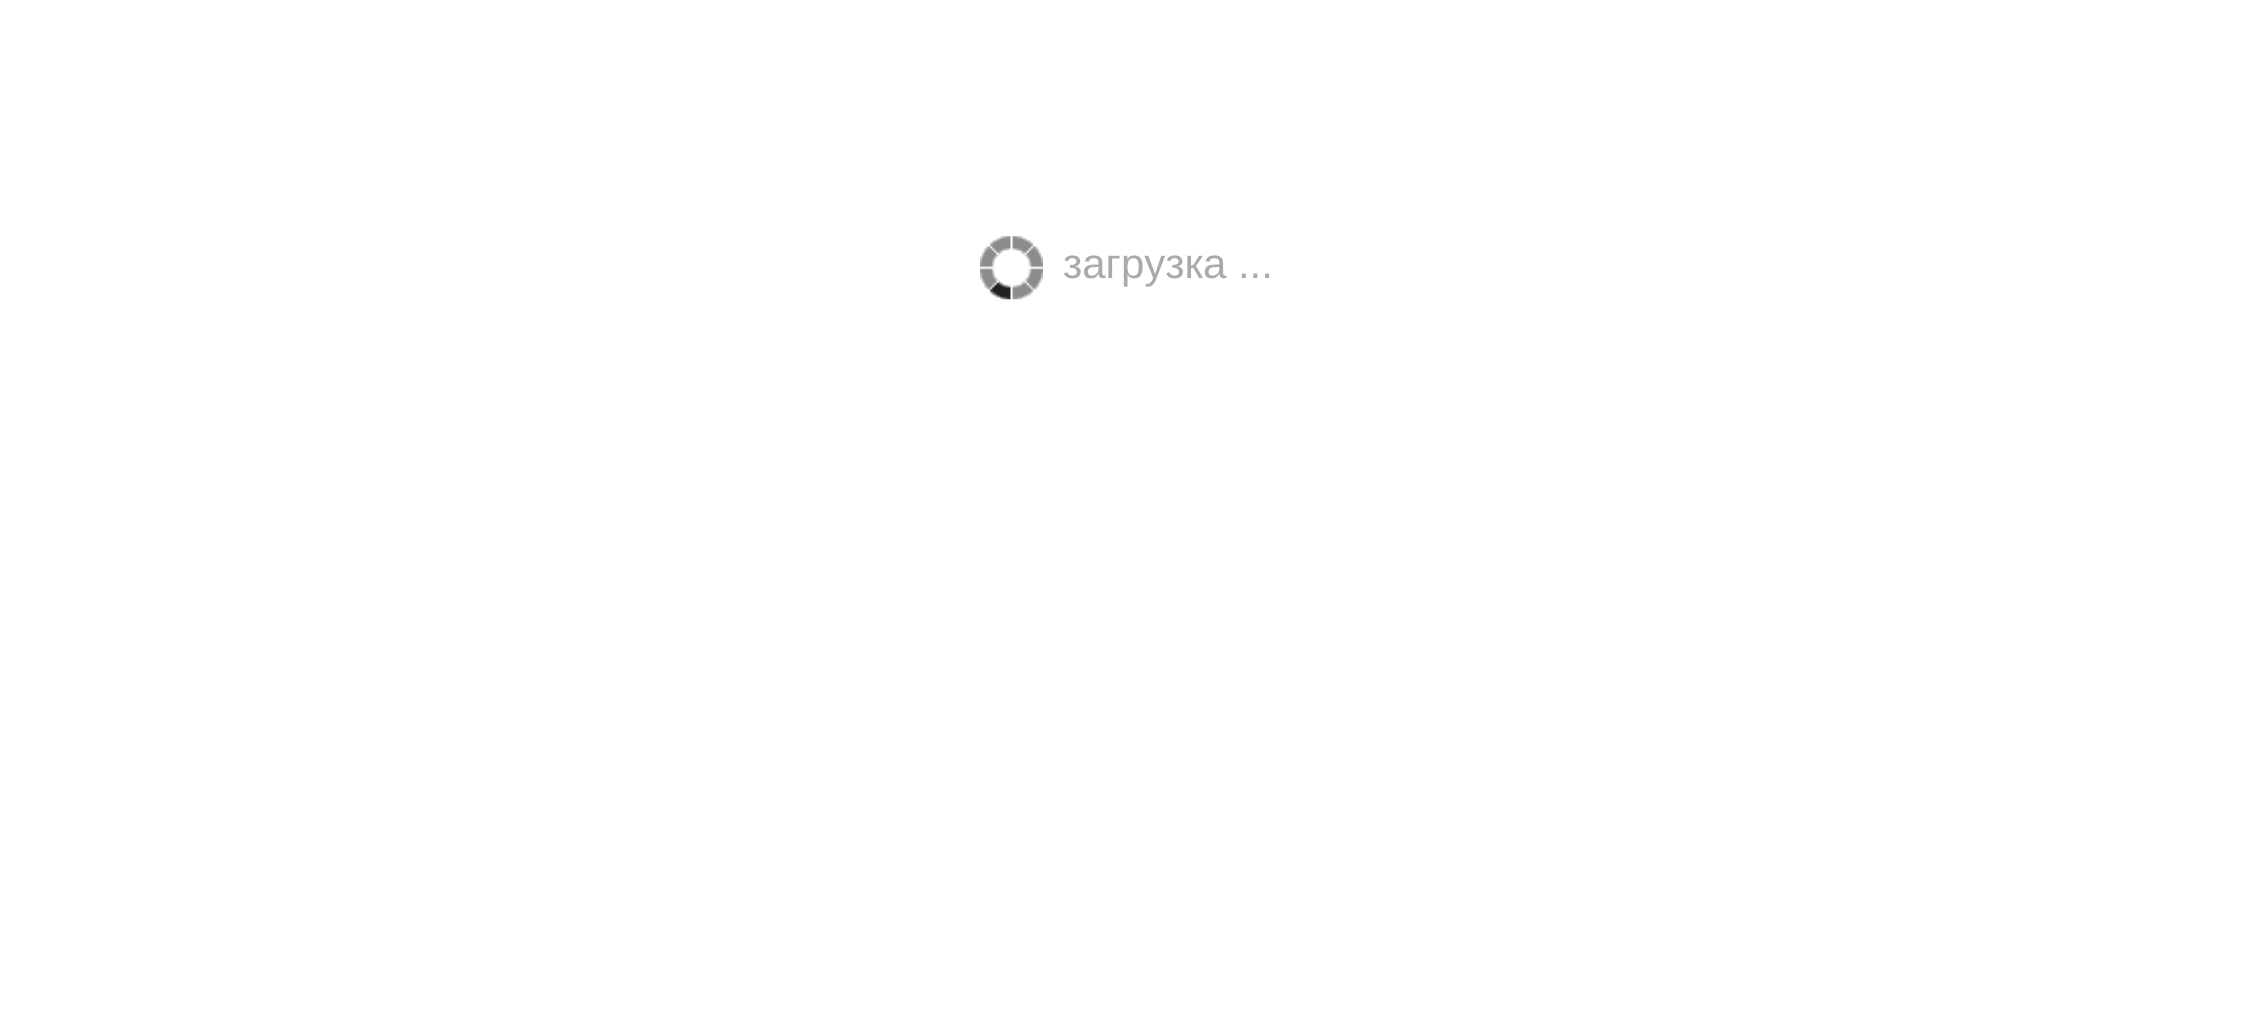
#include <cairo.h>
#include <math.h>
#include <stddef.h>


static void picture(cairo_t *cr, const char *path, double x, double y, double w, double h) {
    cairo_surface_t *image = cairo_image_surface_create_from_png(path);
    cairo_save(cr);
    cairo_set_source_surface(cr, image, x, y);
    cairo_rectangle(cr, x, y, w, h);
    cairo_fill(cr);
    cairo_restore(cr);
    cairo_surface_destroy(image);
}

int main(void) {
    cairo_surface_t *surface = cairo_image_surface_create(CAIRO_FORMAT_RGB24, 2251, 1033);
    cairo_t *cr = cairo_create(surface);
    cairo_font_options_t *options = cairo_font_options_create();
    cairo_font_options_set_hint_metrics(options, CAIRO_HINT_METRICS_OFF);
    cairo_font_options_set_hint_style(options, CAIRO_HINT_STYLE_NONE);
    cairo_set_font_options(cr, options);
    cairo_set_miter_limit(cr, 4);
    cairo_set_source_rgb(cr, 1, 1, 1);
    cairo_paint(cr);
    picture(cr, "img1.png", 980, 236, 63, 64);
    cairo_select_font_face(cr, "Liberation Sans", CAIRO_FONT_SLANT_NORMAL, CAIRO_FONT_WEIGHT_NORMAL);
    cairo_set_font_size(cr, 42);
    cairo_set_source_rgb(cr, 0.667, 0.667, 0.667);
    cairo_move_to(cr, 1063, 278);
    cairo_show_text(cr, "загрузка ...");
    cairo_surface_write_to_png(surface, "page.png");
    cairo_font_options_destroy(options);
    cairo_destroy(cr);
    cairo_surface_destroy(surface);
    return 0;
}
